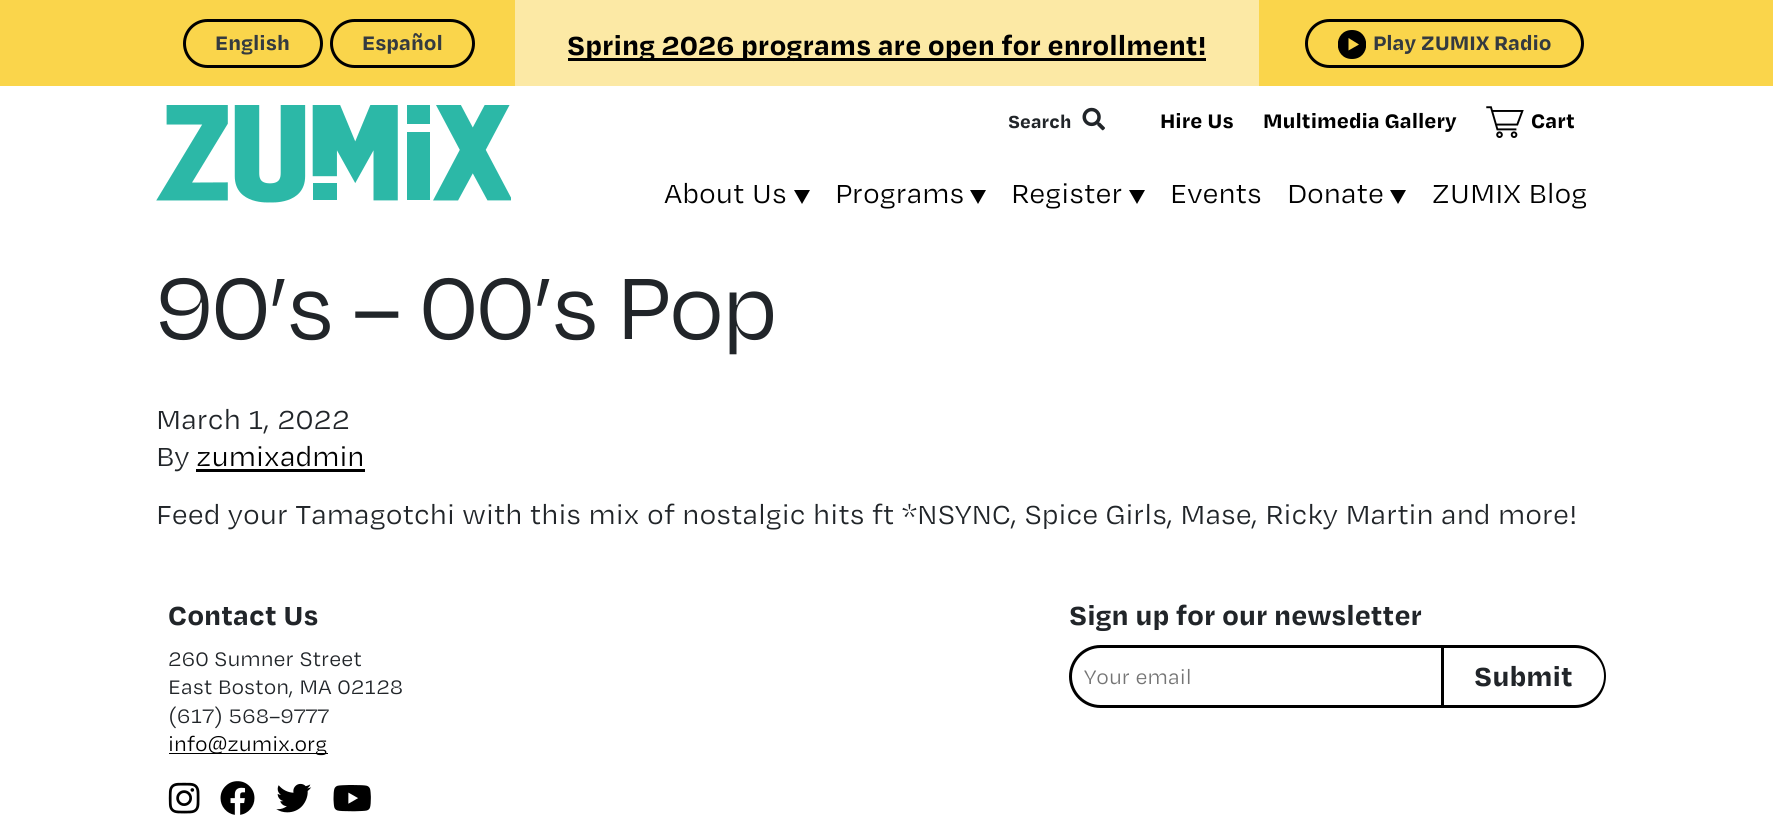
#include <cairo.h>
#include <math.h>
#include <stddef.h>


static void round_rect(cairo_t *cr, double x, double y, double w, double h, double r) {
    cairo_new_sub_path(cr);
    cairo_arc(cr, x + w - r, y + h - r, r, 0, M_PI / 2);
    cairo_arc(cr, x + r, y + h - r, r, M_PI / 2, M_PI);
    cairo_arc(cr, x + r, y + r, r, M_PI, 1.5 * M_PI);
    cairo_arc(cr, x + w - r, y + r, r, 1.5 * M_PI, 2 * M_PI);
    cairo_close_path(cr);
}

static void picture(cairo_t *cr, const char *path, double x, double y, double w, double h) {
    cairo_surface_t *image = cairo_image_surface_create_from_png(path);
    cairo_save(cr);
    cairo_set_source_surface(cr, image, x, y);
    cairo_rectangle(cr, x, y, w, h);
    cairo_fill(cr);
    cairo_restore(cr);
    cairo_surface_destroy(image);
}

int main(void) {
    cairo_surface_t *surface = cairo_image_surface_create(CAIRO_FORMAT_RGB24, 1773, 840);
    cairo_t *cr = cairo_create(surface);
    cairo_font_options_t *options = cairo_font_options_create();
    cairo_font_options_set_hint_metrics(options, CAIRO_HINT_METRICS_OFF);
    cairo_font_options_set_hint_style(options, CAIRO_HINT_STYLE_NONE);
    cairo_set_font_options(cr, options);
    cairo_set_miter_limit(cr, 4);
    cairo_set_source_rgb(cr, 1, 1, 1);
    cairo_paint(cr);
    cairo_set_source_rgb(cr, 0.98, 0.835, 0.294);
    cairo_rectangle(cr, 0, 0, 1773, 86);
    cairo_fill(cr);
    round_rect(cr, 184.5, 20.5, 137, 46, 23);
    cairo_set_source_rgb(cr, 0, 0, 0);
    cairo_set_line_width(cr, 3);
    cairo_stroke(cr);
    cairo_select_font_face(cr, "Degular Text", CAIRO_FONT_SLANT_NORMAL, CAIRO_FONT_WEIGHT_BOLD);
    cairo_set_font_size(cr, 22.5);
    cairo_set_source_rgb(cr, 0.204, 0.227, 0.251);
    cairo_move_to(cr, 215, 50);
    cairo_show_text(cr, "English");
    round_rect(cr, 331.5, 20.5, 142, 46, 23);
    cairo_set_source_rgb(cr, 0, 0, 0);
    cairo_stroke(cr);
    cairo_set_source_rgb(cr, 0.204, 0.227, 0.251);
    cairo_move_to(cr, 362, 50);
    cairo_show_text(cr, "Español");
    cairo_set_source_rgb(cr, 0.988, 0.914, 0.647);
    cairo_rectangle(cr, 515, 0, 744, 86);
    cairo_fill(cr);
    cairo_set_source_rgb(cr, 0, 0, 0);
    cairo_rectangle(cr, 568, 58, 638, 3);
    cairo_fill(cr);
    cairo_set_font_size(cr, 30);
    cairo_move_to(cr, 567, 55);
    cairo_show_text(cr, "Spring 2026 programs are open for enrollment!");
    round_rect(cr, 1306.5, 20.5, 276, 46, 23);
    cairo_stroke(cr);
    cairo_save(cr);
    cairo_rectangle(cr, 1338, 30, 28, 29);
    cairo_clip(cr);
    cairo_new_path(cr);
    cairo_move_to(cr, 1352, 30);
    cairo_curve_to(cr, 1333, 30, 1333, 59, 1352, 59);
    cairo_curve_to(cr, 1371, 59, 1371, 30, 1352, 30);
    cairo_close_path(cr);
    cairo_move_to(cr, 1348.5, 50.5);
    cairo_line_to(cr, 1348.5, 38);
    cairo_line_to(cr, 1359, 44.5);
    cairo_close_path(cr);
    cairo_fill(cr);
    cairo_restore(cr);
    cairo_set_font_size(cr, 22.5);
    cairo_set_source_rgb(cr, 0.204, 0.227, 0.251);
    cairo_move_to(cr, 1373, 50);
    cairo_show_text(cr, "Play ZUMIX Radio");
    picture(cr, "img1.png", 156, 105, 355, 98);
    cairo_set_font_size(cr, 20);
    cairo_set_source_rgb(cr, 0.129, 0.145, 0.161);
    cairo_move_to(cr, 1008, 128);
    cairo_show_text(cr, "Search");
    picture(cr, "img2.png", 1082, 107, 23, 24);
    cairo_set_font_size(cr, 22.5);
    cairo_set_source_rgb(cr, 0, 0, 0);
    cairo_move_to(cr, 1160, 128);
    cairo_show_text(cr, "Hire Us");
    cairo_move_to(cr, 1263, 128);
    cairo_show_text(cr, "Multimedia Gallery");
    picture(cr, "img3.png", 1486, 106, 38, 32);
    cairo_move_to(cr, 1531, 128);
    cairo_show_text(cr, "Cart");
    cairo_select_font_face(cr, "Degular Text", CAIRO_FONT_SLANT_NORMAL, CAIRO_FONT_WEIGHT_NORMAL);
    cairo_set_font_size(cr, 30);
    cairo_move_to(cr, 664, 203);
    cairo_show_text(cr, "About Us");
    cairo_new_path(cr);
    cairo_move_to(cr, 802, 204);
    cairo_line_to(cr, 794, 190);
    cairo_line_to(cr, 810, 190);
    cairo_close_path(cr);
    cairo_fill(cr);
    cairo_move_to(cr, 835, 203);
    cairo_show_text(cr, "Programs");
    cairo_new_path(cr);
    cairo_move_to(cr, 978, 204);
    cairo_line_to(cr, 970, 190);
    cairo_line_to(cr, 986, 190);
    cairo_close_path(cr);
    cairo_fill(cr);
    cairo_move_to(cr, 1011, 203);
    cairo_show_text(cr, "Register");
    cairo_new_path(cr);
    cairo_move_to(cr, 1137, 204);
    cairo_line_to(cr, 1129, 190);
    cairo_line_to(cr, 1145, 190);
    cairo_close_path(cr);
    cairo_fill(cr);
    cairo_move_to(cr, 1170, 203);
    cairo_show_text(cr, "Events");
    cairo_move_to(cr, 1287, 203);
    cairo_show_text(cr, "Donate");
    cairo_new_path(cr);
    cairo_move_to(cr, 1398, 204);
    cairo_line_to(cr, 1390, 190);
    cairo_line_to(cr, 1406, 190);
    cairo_close_path(cr);
    cairo_fill(cr);
    cairo_move_to(cr, 1432, 203);
    cairo_show_text(cr, "ZUMIX Blog");
    cairo_select_font_face(cr, "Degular", CAIRO_FONT_SLANT_NORMAL, CAIRO_FONT_WEIGHT_NORMAL);
    cairo_set_font_size(cr, 100);
    cairo_set_source_rgb(cr, 0.129, 0.145, 0.161);
    cairo_move_to(cr, 156, 339);
    cairo_show_text(cr, "90’s – 00’s Pop");
    cairo_select_font_face(cr, "Degular Text", CAIRO_FONT_SLANT_NORMAL, CAIRO_FONT_WEIGHT_NORMAL);
    cairo_set_font_size(cr, 30);
    cairo_move_to(cr, 156, 429);
    cairo_show_text(cr, "March 1, 2022");
    cairo_move_to(cr, 156, 466);
    cairo_show_text(cr, "By");
    cairo_set_source_rgb(cr, 0, 0, 0);
    cairo_move_to(cr, 196, 466);
    cairo_show_text(cr, "zumixadmin");
    cairo_rectangle(cr, 196, 469, 169, 3);
    cairo_fill(cr);
    cairo_set_source_rgb(cr, 0.129, 0.145, 0.161);
    cairo_move_to(cr, 156, 524);
    cairo_show_text(cr, "Feed your Tamagotchi with this mix of nostalgic hits ft *NSYNC, Spice Girls, Mase, Ricky Martin and more!");
    cairo_select_font_face(cr, "Degular Text", CAIRO_FONT_SLANT_NORMAL, CAIRO_FONT_WEIGHT_BOLD);
    cairo_move_to(cr, 168, 625);
    cairo_show_text(cr, "Contact Us");
    cairo_select_font_face(cr, "Degular Text", CAIRO_FONT_SLANT_NORMAL, CAIRO_FONT_WEIGHT_NORMAL);
    cairo_set_font_size(cr, 22.5);
    cairo_move_to(cr, 168, 666);
    cairo_show_text(cr, "260 Sumner Street");
    cairo_move_to(cr, 168, 694);
    cairo_show_text(cr, "East Boston, MA 02128");
    cairo_move_to(cr, 168, 723);
    cairo_show_text(cr, "(617) 568–9777");
    cairo_set_source_rgb(cr, 0, 0, 0);
    cairo_rectangle(cr, 169, 753, 159, 1);
    cairo_fill(cr);
    cairo_move_to(cr, 168, 751);
    cairo_show_text(cr, "info@zumix.org");
    picture(cr, "img4.png", 168, 782, 32, 32);
    picture(cr, "img5.png", 220, 781, 35, 34);
    picture(cr, "img6.png", 276, 783, 36, 30);
    picture(cr, "img7.png", 333, 785, 38, 27);
    cairo_select_font_face(cr, "Degular Text", CAIRO_FONT_SLANT_NORMAL, CAIRO_FONT_WEIGHT_BOLD);
    cairo_set_font_size(cr, 30);
    cairo_set_source_rgb(cr, 0.129, 0.145, 0.161);
    cairo_move_to(cr, 1069, 625);
    cairo_show_text(cr, "Sign up for our newsletter");
    cairo_new_path(cr);
    cairo_move_to(cr, 1100.5, 646.5);
    cairo_line_to(cr, 1442.5, 646.5);
    cairo_line_to(cr, 1442.5, 706.5);
    cairo_line_to(cr, 1100.5, 706.5);
    cairo_curve_to(cr, 1084, 706.5, 1070.5, 693, 1070.5, 676.5);
    cairo_curve_to(cr, 1070.5, 660, 1084, 646.5, 1100.5, 646.5);
    cairo_close_path(cr);
    cairo_set_source_rgb(cr, 0, 0, 0);
    cairo_stroke(cr);
    cairo_select_font_face(cr, "Degular Text", CAIRO_FONT_SLANT_NORMAL, CAIRO_FONT_WEIGHT_NORMAL);
    cairo_set_font_size(cr, 22.5);
    cairo_set_source_rgb(cr, 0.459, 0.459, 0.459);
    cairo_move_to(cr, 1084, 684);
    cairo_show_text(cr, "Your email");
    cairo_set_source_rgb(cr, 0, 0, 0);
    cairo_set_fill_rule(cr, CAIRO_FILL_RULE_EVEN_ODD);
    cairo_new_path(cr);
    cairo_move_to(cr, 1444, 645);
    cairo_line_to(cr, 1575, 645);
    cairo_curve_to(cr, 1592, 645, 1606, 659, 1606, 676);
    cairo_curve_to(cr, 1606, 694, 1592, 708, 1575, 708);
    cairo_line_to(cr, 1444, 708);
    cairo_close_path(cr);
    cairo_move_to(cr, 1444, 648);
    cairo_line_to(cr, 1575, 648);
    cairo_curve_to(cr, 1591, 648, 1604, 660, 1604, 676);
    cairo_curve_to(cr, 1604, 692, 1591, 705, 1575, 705);
    cairo_line_to(cr, 1444, 705);
    cairo_close_path(cr);
    cairo_fill(cr);
    cairo_select_font_face(cr, "Degular Text", CAIRO_FONT_SLANT_NORMAL, CAIRO_FONT_WEIGHT_BOLD);
    cairo_set_font_size(cr, 30);
    cairo_set_source_rgb(cr, 0.129, 0.145, 0.161);
    cairo_move_to(cr, 1474, 686);
    cairo_show_text(cr, "Submit");
    cairo_surface_write_to_png(surface, "page.png");
    cairo_font_options_destroy(options);
    cairo_destroy(cr);
    cairo_surface_destroy(surface);
    return 0;
}
